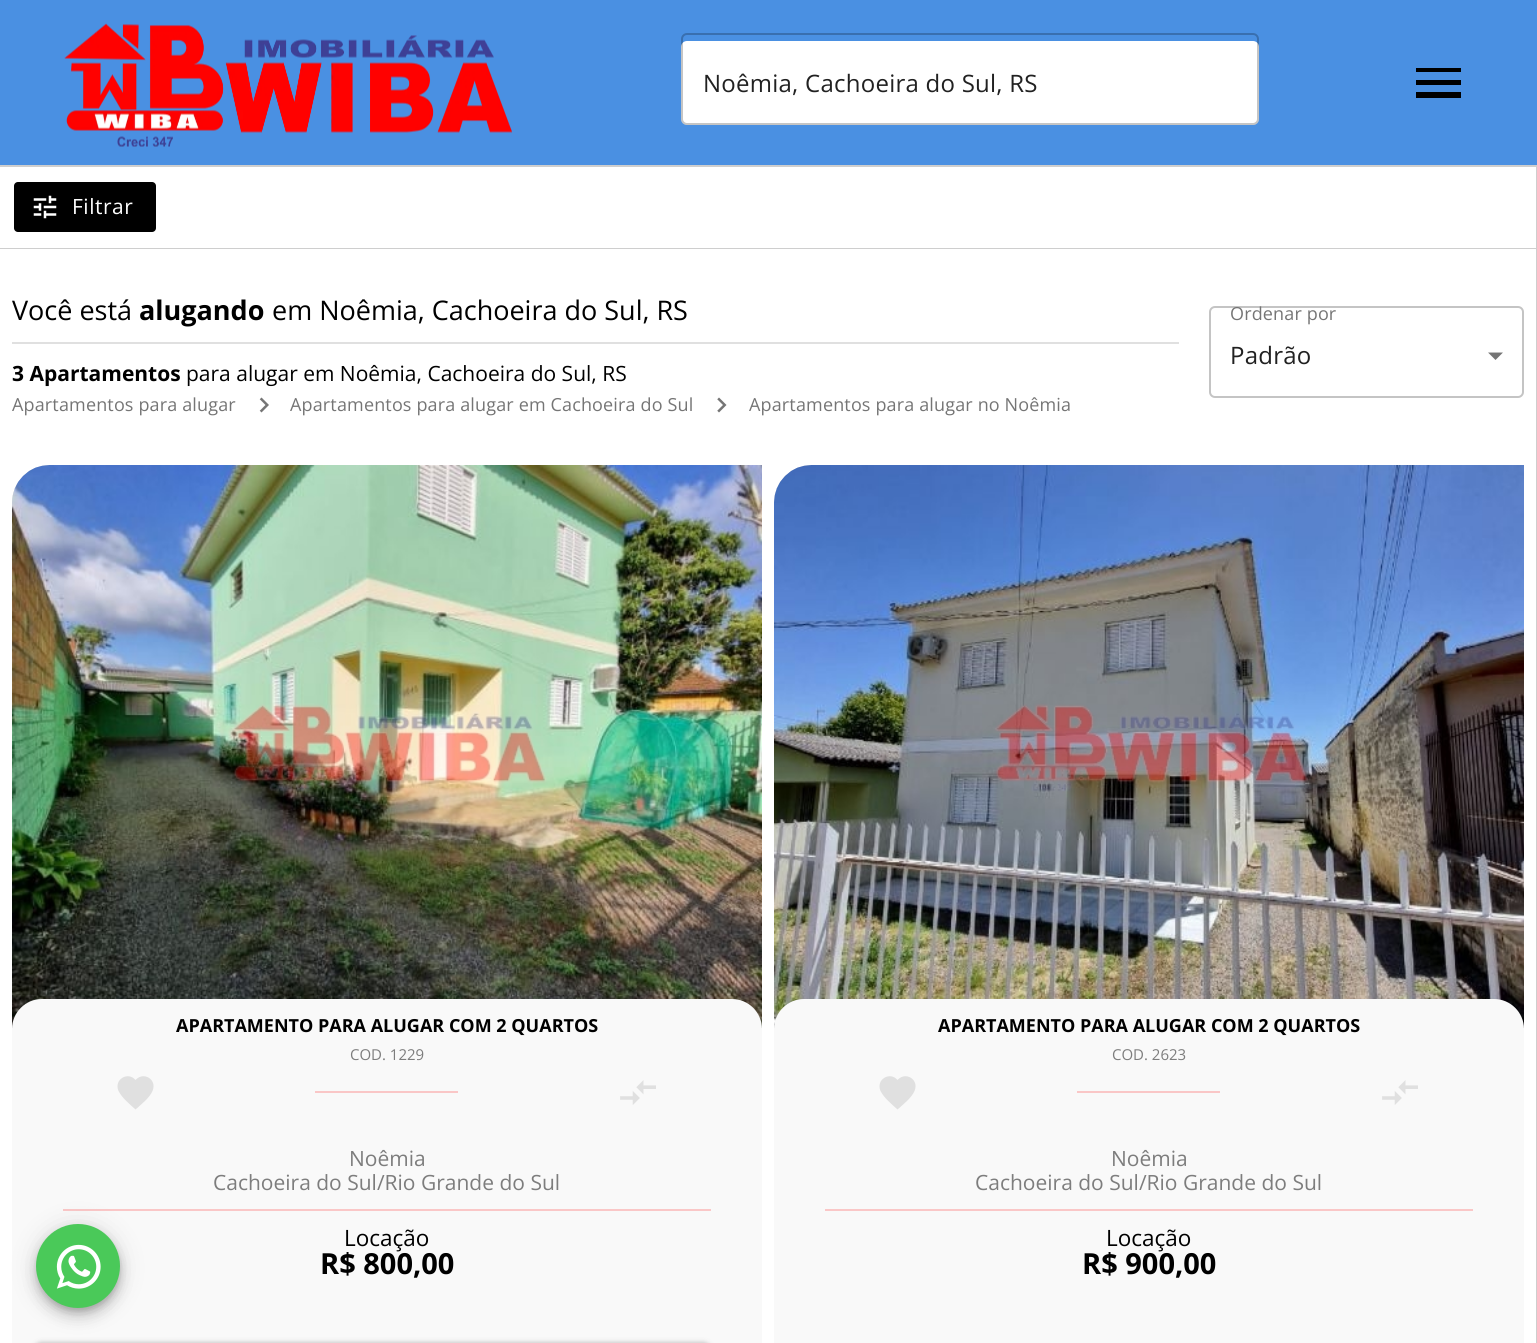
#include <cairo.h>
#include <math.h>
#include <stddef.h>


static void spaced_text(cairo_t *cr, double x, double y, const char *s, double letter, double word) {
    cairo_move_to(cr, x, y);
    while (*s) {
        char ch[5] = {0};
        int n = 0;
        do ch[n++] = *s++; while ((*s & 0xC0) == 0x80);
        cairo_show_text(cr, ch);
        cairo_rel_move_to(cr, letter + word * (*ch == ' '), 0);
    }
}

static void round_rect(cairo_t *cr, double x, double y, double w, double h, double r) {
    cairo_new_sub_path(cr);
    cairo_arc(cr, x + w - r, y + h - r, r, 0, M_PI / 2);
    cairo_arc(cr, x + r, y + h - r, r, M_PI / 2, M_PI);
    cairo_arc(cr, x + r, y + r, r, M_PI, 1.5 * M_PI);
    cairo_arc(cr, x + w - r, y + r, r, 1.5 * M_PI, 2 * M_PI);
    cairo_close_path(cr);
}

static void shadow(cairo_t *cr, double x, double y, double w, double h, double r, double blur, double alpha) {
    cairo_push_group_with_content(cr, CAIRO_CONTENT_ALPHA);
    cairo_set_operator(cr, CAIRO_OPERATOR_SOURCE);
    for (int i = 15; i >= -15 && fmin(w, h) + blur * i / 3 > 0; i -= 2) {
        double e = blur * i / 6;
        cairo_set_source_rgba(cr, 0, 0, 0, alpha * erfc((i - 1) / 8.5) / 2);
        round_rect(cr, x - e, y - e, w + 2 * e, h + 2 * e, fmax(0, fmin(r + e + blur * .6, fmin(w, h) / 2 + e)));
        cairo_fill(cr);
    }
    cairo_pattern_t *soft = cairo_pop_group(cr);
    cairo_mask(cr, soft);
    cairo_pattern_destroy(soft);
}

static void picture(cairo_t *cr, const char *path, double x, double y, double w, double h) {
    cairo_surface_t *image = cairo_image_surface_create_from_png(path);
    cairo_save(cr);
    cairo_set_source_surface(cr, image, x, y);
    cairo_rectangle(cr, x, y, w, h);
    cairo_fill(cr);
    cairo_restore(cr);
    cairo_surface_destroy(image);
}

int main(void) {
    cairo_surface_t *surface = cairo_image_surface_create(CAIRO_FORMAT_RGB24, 1537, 1343);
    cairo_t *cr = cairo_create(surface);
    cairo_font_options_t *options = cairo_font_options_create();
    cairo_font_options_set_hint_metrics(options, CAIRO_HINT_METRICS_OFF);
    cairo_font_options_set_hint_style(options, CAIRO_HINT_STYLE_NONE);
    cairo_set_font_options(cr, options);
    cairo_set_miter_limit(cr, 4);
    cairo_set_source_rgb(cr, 1, 1, 1);
    cairo_paint(cr);
    cairo_set_source_rgb(cr, 0.29, 0.565, 0.886);
    cairo_rectangle(cr, 0, 0, 1537, 165);
    cairo_fill(cr);
    picture(cr, "img1.png", 64, 23, 448, 124);
    cairo_set_source_rgb(cr, 1, 1, 1);
    round_rect(cr, 681, 41, 578, 84, 6);
    cairo_fill(cr);
    round_rect(cr, 682, 34, 576, 90, 5);
    cairo_set_source_rgba(cr, 0, 0, 0, 0.23);
    cairo_stroke(cr);
    cairo_select_font_face(cr, "Open Sans", CAIRO_FONT_SLANT_NORMAL, CAIRO_FONT_WEIGHT_NORMAL);
    cairo_set_font_size(cr, 24);
    cairo_set_source_rgb(cr, 0.129, 0.129, 0.129);
    spaced_text(cr, 703, 92, "Noêmia, Cachoeira do Sul, RS", 0.25, 0);
    cairo_set_source_rgb(cr, 0, 0, 0);
    cairo_new_path(cr);
    cairo_move_to(cr, 1416, 98);
    cairo_line_to(cr, 1461, 98);
    cairo_line_to(cr, 1461, 92);
    cairo_line_to(cr, 1416, 92);
    cairo_close_path(cr);
    cairo_move_to(cr, 1416, 85);
    cairo_line_to(cr, 1461, 85);
    cairo_line_to(cr, 1461, 80);
    cairo_line_to(cr, 1416, 80);
    cairo_close_path(cr);
    cairo_move_to(cr, 1416, 68);
    cairo_line_to(cr, 1416, 72);
    cairo_line_to(cr, 1461, 72);
    cairo_line_to(cr, 1461, 68);
    cairo_close_path(cr);
    cairo_fill(cr);
    cairo_set_source_rgb(cr, 0.808, 0.808, 0.808);
    cairo_rectangle(cr, 0, 165, 1537, 2);
    cairo_fill(cr);
    cairo_rectangle(cr, 1536, 167, 1, 1176);
    cairo_fill(cr);
    cairo_rectangle(cr, 0, 248, 1536, 1);
    cairo_fill(cr);
    cairo_set_source_rgb(cr, 0, 0, 0);
    round_rect(cr, 13, 181, 144, 52, 5);
    cairo_fill_preserve(cr);
    cairo_set_source_rgb(cr, 1, 1, 1);
    cairo_stroke(cr);
    picture(cr, "img2.png", 33, 195, 24, 24);
    cairo_set_font_size(cr, 21);
    spaced_text(cr, 72, 214, "Filtrar", 0.5, 0);
    cairo_set_font_size(cr, 27);
    cairo_set_source_rgb(cr, 0, 0, 0);
    cairo_move_to(cr, 12, 320);
    cairo_show_text(cr, "Você está");
    cairo_select_font_face(cr, "Open Sans", CAIRO_FONT_SLANT_NORMAL, CAIRO_FONT_WEIGHT_BOLD);
    cairo_move_to(cr, 139, 320);
    cairo_show_text(cr, "alugando");
    cairo_select_font_face(cr, "Open Sans", CAIRO_FONT_SLANT_NORMAL, CAIRO_FONT_WEIGHT_NORMAL);
    cairo_move_to(cr, 272, 320);
    cairo_show_text(cr, "em Noêmia, Cachoeira do Sul, RS");
    cairo_set_source_rgb(cr, 0.878, 0.878, 0.878);
    cairo_rectangle(cr, 12, 342, 1167, 2);
    cairo_fill(cr);
    cairo_select_font_face(cr, "Open Sans", CAIRO_FONT_SLANT_NORMAL, CAIRO_FONT_WEIGHT_BOLD);
    cairo_set_font_size(cr, 21);
    cairo_set_source_rgb(cr, 0, 0, 0);
    cairo_move_to(cr, 12, 381);
    cairo_show_text(cr, "3 Apartamentos");
    cairo_select_font_face(cr, "Open Sans", CAIRO_FONT_SLANT_NORMAL, CAIRO_FONT_WEIGHT_NORMAL);
    cairo_move_to(cr, 186, 381);
    cairo_show_text(cr, "para alugar em Noêmia, Cachoeira do Sul, RS");
    cairo_set_font_size(cr, 18);
    cairo_set_source_rgb(cr, 0.459, 0.459, 0.459);
    spaced_text(cr, 12, 411, "Apartamentos para alugar", 0.15, 0);
    picture(cr, "img3.png", 259, 397, 10, 16);
    spaced_text(cr, 290, 411, "Apartamentos para alugar em Cachoeira do Sul", 0.15, 0);
    picture(cr, "img4.png", 717, 397, 10, 16);
    spaced_text(cr, 749, 411, "Apartamentos para alugar no Noêmia", 0.15, 0);
    cairo_new_path(cr);
    cairo_move_to(cr, 1488, 352.5);
    cairo_line_to(cr, 1495.5, 360);
    cairo_line_to(cr, 1503, 352.5);
    cairo_close_path(cr);
    cairo_fill(cr);
    round_rect(cr, 1210, 307, 313, 90, 5);
    cairo_set_source_rgb(cr, 0.769, 0.769, 0.769);
    cairo_stroke(cr);
    cairo_set_source_rgb(cr, 0.459, 0.459, 0.459);
    spaced_text(cr, 1230, 320, "Ordenar por", 0.15, 0);
    cairo_set_font_size(cr, 24);
    cairo_set_source_rgb(cr, 0.129, 0.129, 0.129);
    spaced_text(cr, 1230, 364, "Padrão", 0.25, 0);
    cairo_set_source_rgb(cr, 0.843, 0.843, 0.843);
    cairo_new_path(cr);
    cairo_move_to(cr, 50, 465);
    cairo_line_to(cr, 762, 465);
    cairo_line_to(cr, 762, 1029);
    cairo_line_to(cr, 12, 1029);
    cairo_line_to(cr, 12, 503);
    cairo_curve_to(cr, 12, 482, 29, 465, 50, 465);
    cairo_close_path(cr);
    cairo_fill(cr);
    picture(cr, "img5.png", 12, 465, 750, 563);
    cairo_set_source_rgb(cr, 0.976, 0.976, 0.976);
    cairo_new_path(cr);
    cairo_move_to(cr, 42, 999);
    cairo_line_to(cr, 732, 999);
    cairo_curve_to(cr, 748.5, 999, 762, 1012.5, 762, 1029);
    cairo_line_to(cr, 762, 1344);
    cairo_line_to(cr, 12, 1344);
    cairo_line_to(cr, 12, 1029);
    cairo_curve_to(cr, 12, 1012.5, 25.5, 999, 42, 999);
    cairo_close_path(cr);
    cairo_fill(cr);
    cairo_select_font_face(cr, "Open Sans", CAIRO_FONT_SLANT_NORMAL, CAIRO_FONT_WEIGHT_BOLD);
    cairo_set_font_size(cr, 18);
    cairo_set_source_rgb(cr, 0, 0, 0);
    cairo_move_to(cr, 176, 1032);
    cairo_show_text(cr, "APARTAMENTO PARA ALUGAR COM 2 QUARTOS");
    cairo_select_font_face(cr, "Open Sans", CAIRO_FONT_SLANT_NORMAL, CAIRO_FONT_WEIGHT_NORMAL);
    cairo_set_font_size(cr, 15);
    cairo_set_source_rgb(cr, 0.49, 0.49, 0.49);
    cairo_move_to(cr, 350, 1060);
    cairo_show_text(cr, "COD. 1229");
    cairo_set_source_rgb(cr, 0.878, 0.878, 0.878);
    cairo_new_path(cr);
    cairo_move_to(cr, 135.5, 1109.5);
    cairo_curve_to(cr, 130, 1104.5, 122, 1098, 118.5, 1091);
    cairo_curve_to(cr, 113.5, 1079.5, 128, 1071, 135.5, 1080);
    cairo_curve_to(cr, 143.5, 1071, 157.5, 1079.5, 152.5, 1091);
    cairo_curve_to(cr, 149.5, 1098, 141, 1104.5, 135.5, 1109.5);
    cairo_close_path(cr);
    cairo_fill(cr);
    cairo_set_source_rgb(cr, 0.98, 0.78, 0.78);
    cairo_rectangle(cr, 315, 1091, 143, 2);
    cairo_fill(cr);
    picture(cr, "img6.png", 620, 1080, 36, 25);
    cairo_set_font_size(cr, 21);
    cairo_set_source_rgb(cr, 0.49, 0.49, 0.49);
    cairo_move_to(cr, 349, 1166);
    cairo_show_text(cr, "Noêmia");
    cairo_move_to(cr, 213, 1190);
    cairo_show_text(cr, "Cachoeira do Sul/Rio Grande do Sul");
    cairo_set_source_rgb(cr, 0.98, 0.78, 0.78);
    cairo_rectangle(cr, 63, 1209, 648, 2);
    cairo_fill(cr);
    cairo_set_font_size(cr, 22.5);
    cairo_set_source_rgb(cr, 0, 0, 0);
    cairo_move_to(cr, 344, 1246);
    cairo_show_text(cr, "Locação");
    cairo_select_font_face(cr, "Open Sans", CAIRO_FONT_SLANT_NORMAL, CAIRO_FONT_WEIGHT_BOLD);
    cairo_set_font_size(cr, 29);
    cairo_move_to(cr, 320, 1274);
    cairo_show_text(cr, "R$ 800,00");
    cairo_set_source_rgb(cr, 0.843, 0.843, 0.843);
    cairo_new_path(cr);
    cairo_move_to(cr, 812, 465);
    cairo_line_to(cr, 1524, 465);
    cairo_line_to(cr, 1524, 1029);
    cairo_line_to(cr, 774, 1029);
    cairo_line_to(cr, 774, 503);
    cairo_curve_to(cr, 774, 482, 791, 465, 812, 465);
    cairo_close_path(cr);
    cairo_fill(cr);
    picture(cr, "img7.png", 774, 465, 750, 563);
    cairo_set_source_rgb(cr, 0.976, 0.976, 0.976);
    cairo_new_path(cr);
    cairo_move_to(cr, 804, 999);
    cairo_line_to(cr, 1494, 999);
    cairo_curve_to(cr, 1510.5, 999, 1524, 1012.5, 1524, 1029);
    cairo_line_to(cr, 1524, 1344);
    cairo_line_to(cr, 774, 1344);
    cairo_line_to(cr, 774, 1029);
    cairo_curve_to(cr, 774, 1012.5, 787.5, 999, 804, 999);
    cairo_close_path(cr);
    cairo_fill(cr);
    cairo_set_font_size(cr, 18);
    cairo_set_source_rgb(cr, 0, 0, 0);
    cairo_move_to(cr, 938, 1032);
    cairo_show_text(cr, "APARTAMENTO PARA ALUGAR COM 2 QUARTOS");
    cairo_select_font_face(cr, "Open Sans", CAIRO_FONT_SLANT_NORMAL, CAIRO_FONT_WEIGHT_NORMAL);
    cairo_set_font_size(cr, 15);
    cairo_set_source_rgb(cr, 0.49, 0.49, 0.49);
    cairo_move_to(cr, 1112, 1060);
    cairo_show_text(cr, "COD. 2623");
    cairo_set_source_rgb(cr, 0.878, 0.878, 0.878);
    cairo_new_path(cr);
    cairo_move_to(cr, 897.5, 1109.5);
    cairo_curve_to(cr, 892, 1104.5, 884, 1098, 880.5, 1091);
    cairo_curve_to(cr, 875.5, 1079.5, 890, 1071, 897.5, 1080);
    cairo_curve_to(cr, 905.5, 1071, 919.5, 1079.5, 914.5, 1091);
    cairo_curve_to(cr, 911.5, 1098, 903, 1104.5, 897.5, 1109.5);
    cairo_close_path(cr);
    cairo_fill(cr);
    cairo_set_source_rgb(cr, 0.98, 0.78, 0.78);
    cairo_rectangle(cr, 1077, 1091, 143, 2);
    cairo_fill(cr);
    picture(cr, "img6.png", 1382, 1080, 36, 25);
    cairo_set_font_size(cr, 21);
    cairo_set_source_rgb(cr, 0.49, 0.49, 0.49);
    cairo_move_to(cr, 1111, 1166);
    cairo_show_text(cr, "Noêmia");
    cairo_move_to(cr, 975, 1190);
    cairo_show_text(cr, "Cachoeira do Sul/Rio Grande do Sul");
    cairo_set_source_rgb(cr, 0.98, 0.78, 0.78);
    cairo_rectangle(cr, 825, 1209, 648, 2);
    cairo_fill(cr);
    cairo_set_font_size(cr, 22.5);
    cairo_set_source_rgb(cr, 0, 0, 0);
    cairo_move_to(cr, 1106, 1246);
    cairo_show_text(cr, "Locação");
    cairo_select_font_face(cr, "Open Sans", CAIRO_FONT_SLANT_NORMAL, CAIRO_FONT_WEIGHT_BOLD);
    cairo_set_font_size(cr, 29);
    cairo_move_to(cr, 1082, 1274);
    cairo_show_text(cr, "R$ 900,00");
    cairo_set_source_rgb(cr, 0, 0, 0);
    shadow(cr, 36, 1226, 84, 84, 42, 13.5, 0.12);
    shadow(cr, 36, 1233, 84, 84, 42, 7.5, 0.14);
    shadow(cr, 38, 1230, 81, 81, 40.5, 4, 0.2);
    cairo_set_source_rgb(cr, 0.29, 0.788, 0.349);
    cairo_arc(cr, 78, 1266, 42, 0, 2 * M_PI);
    cairo_fill(cr);
    picture(cr, "img8.png", 56, 1244, 45, 45);
    cairo_set_source_rgb(cr, 0, 0, 0);
    shadow(cr, 35, 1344, 675, 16, 8, 3, 0.4);
    cairo_surface_write_to_png(surface, "page.png");
    cairo_font_options_destroy(options);
    cairo_destroy(cr);
    cairo_surface_destroy(surface);
    return 0;
}
